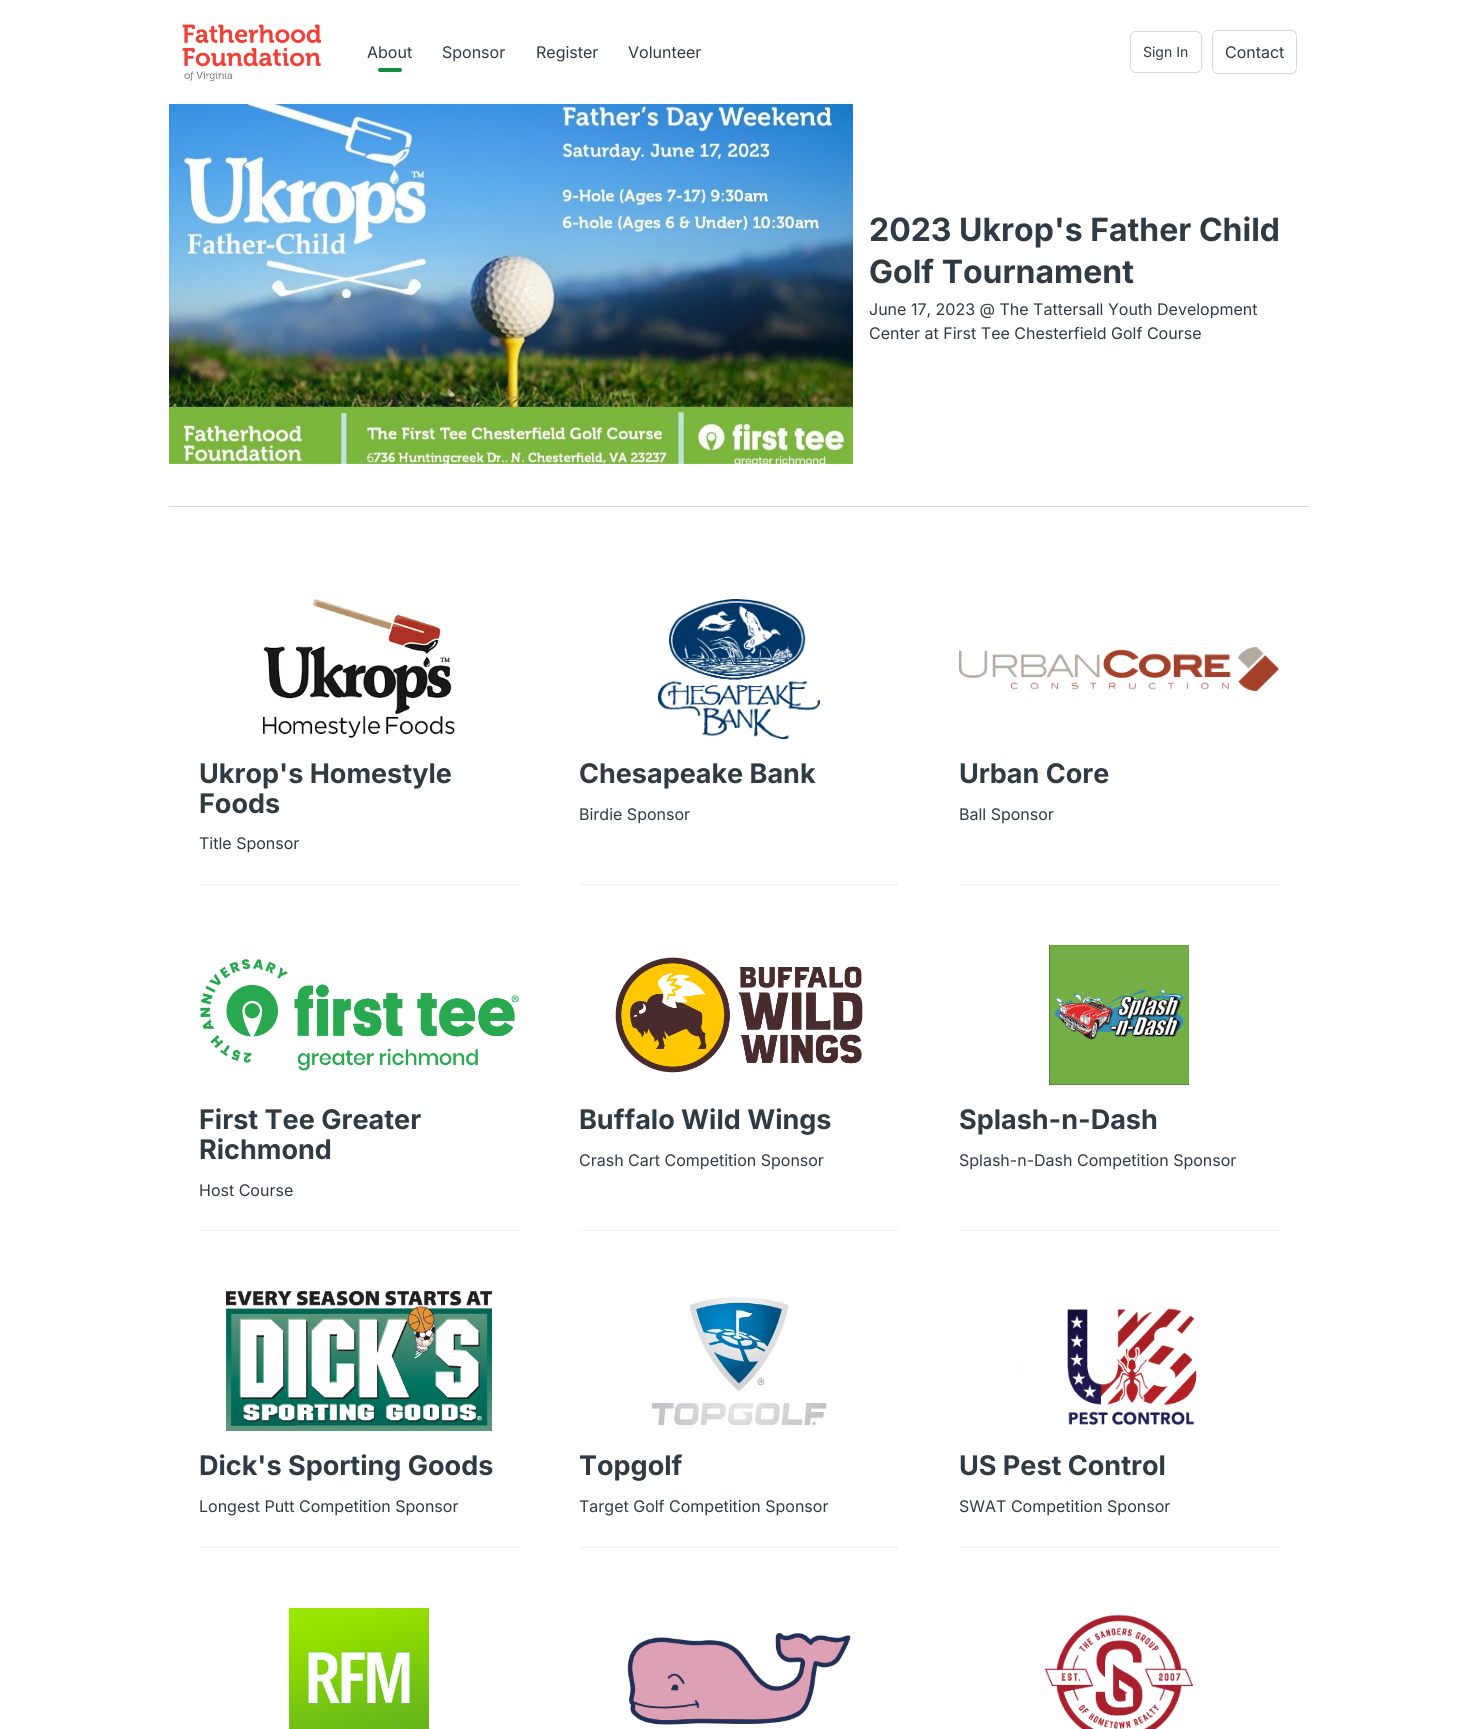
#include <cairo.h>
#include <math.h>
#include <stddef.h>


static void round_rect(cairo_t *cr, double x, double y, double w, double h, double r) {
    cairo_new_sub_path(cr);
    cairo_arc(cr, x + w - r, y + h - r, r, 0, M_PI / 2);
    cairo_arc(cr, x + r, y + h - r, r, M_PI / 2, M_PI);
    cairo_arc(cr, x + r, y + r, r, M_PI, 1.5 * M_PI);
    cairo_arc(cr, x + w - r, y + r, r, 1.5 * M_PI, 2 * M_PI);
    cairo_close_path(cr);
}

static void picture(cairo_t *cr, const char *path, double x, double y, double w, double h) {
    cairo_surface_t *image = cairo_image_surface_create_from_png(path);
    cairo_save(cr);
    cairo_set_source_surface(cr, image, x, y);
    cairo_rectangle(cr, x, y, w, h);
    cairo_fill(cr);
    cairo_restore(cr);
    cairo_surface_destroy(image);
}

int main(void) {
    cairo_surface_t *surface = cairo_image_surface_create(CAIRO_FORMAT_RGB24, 1478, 1729);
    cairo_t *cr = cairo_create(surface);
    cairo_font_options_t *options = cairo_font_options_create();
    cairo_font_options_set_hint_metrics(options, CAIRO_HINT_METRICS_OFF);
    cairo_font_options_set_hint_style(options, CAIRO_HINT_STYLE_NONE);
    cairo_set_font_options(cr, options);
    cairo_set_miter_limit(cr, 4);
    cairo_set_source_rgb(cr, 1, 1, 1);
    cairo_paint(cr);
    picture(cr, "img1.png", 182, 24, 140, 57);
    cairo_select_font_face(cr, "Inter", CAIRO_FONT_SLANT_NORMAL, CAIRO_FONT_WEIGHT_NORMAL);
    cairo_set_font_size(cr, 16);
    cairo_set_source_rgb(cr, 0.188, 0.227, 0.263);
    cairo_move_to(cr, 367, 58);
    cairo_show_text(cr, "About");
    cairo_set_source_rgb(cr, 0.078, 0.553, 0.235);
    round_rect(cr, 378, 68, 24, 4, 2);
    cairo_fill(cr);
    cairo_set_source_rgb(cr, 0.188, 0.227, 0.263);
    cairo_move_to(cr, 442, 58);
    cairo_show_text(cr, "Sponsor");
    cairo_move_to(cr, 536, 58);
    cairo_show_text(cr, "Register");
    cairo_move_to(cr, 628, 58);
    cairo_show_text(cr, "Volunteer");
    round_rect(cr, 1130.5, 31.5, 71, 41, 5.5);
    cairo_set_source_rgb(cr, 0.831, 0.847, 0.882);
    cairo_set_line_width(cr, 1);
    cairo_stroke(cr);
    cairo_set_font_size(cr, 14);
    cairo_set_source_rgb(cr, 0.188, 0.227, 0.263);
    cairo_move_to(cr, 1143, 57);
    cairo_show_text(cr, "Sign In");
    round_rect(cr, 1212.5, 30.5, 84, 43, 5.5);
    cairo_set_source_rgb(cr, 0.831, 0.847, 0.882);
    cairo_stroke(cr);
    cairo_set_font_size(cr, 16);
    cairo_set_source_rgb(cr, 0.188, 0.227, 0.263);
    cairo_move_to(cr, 1225, 58);
    cairo_show_text(cr, "Contact");
    picture(cr, "img2.png", 169, 104, 684, 360);
    cairo_select_font_face(cr, "Inter", CAIRO_FONT_SLANT_NORMAL, CAIRO_FONT_WEIGHT_BOLD);
    cairo_set_font_size(cr, 32);
    cairo_move_to(cr, 869, 241);
    cairo_show_text(cr, "2023 Ukrop's Father Child");
    cairo_move_to(cr, 869, 283);
    cairo_show_text(cr, "Golf Tournament");
    cairo_select_font_face(cr, "Inter", CAIRO_FONT_SLANT_NORMAL, CAIRO_FONT_WEIGHT_NORMAL);
    cairo_set_font_size(cr, 16);
    cairo_move_to(cr, 869, 315);
    cairo_show_text(cr, "June 17, 2023 @ The Tattersall Youth Development");
    cairo_move_to(cr, 869, 339);
    cairo_show_text(cr, "Center at First Tee Chesterfield Golf Course");
    cairo_set_source_rgb(cr, 0.831, 0.847, 0.882);
    cairo_rectangle(cr, 169, 506, 1140, 1);
    cairo_fill(cr);
    picture(cr, "img3.png", 263, 599, 192, 139);
    cairo_select_font_face(cr, "Inter", CAIRO_FONT_SLANT_NORMAL, CAIRO_FONT_WEIGHT_BOLD);
    cairo_set_font_size(cr, 27);
    cairo_set_source_rgb(cr, 0.188, 0.227, 0.263);
    cairo_move_to(cr, 199, 783);
    cairo_show_text(cr, "Ukrop's Homestyle");
    cairo_move_to(cr, 199, 813);
    cairo_show_text(cr, "Foods");
    cairo_select_font_face(cr, "Inter", CAIRO_FONT_SLANT_NORMAL, CAIRO_FONT_WEIGHT_NORMAL);
    cairo_set_font_size(cr, 16);
    cairo_move_to(cr, 199, 849);
    cairo_show_text(cr, "Title Sponsor");
    cairo_set_source_rgb(cr, 0.937, 0.941, 0.949);
    cairo_rectangle(cr, 199, 884, 320, 1);
    cairo_fill(cr);
    picture(cr, "img4.png", 658, 599, 162, 140);
    cairo_select_font_face(cr, "Inter", CAIRO_FONT_SLANT_NORMAL, CAIRO_FONT_WEIGHT_BOLD);
    cairo_set_font_size(cr, 27);
    cairo_set_source_rgb(cr, 0.188, 0.227, 0.263);
    cairo_move_to(cr, 579, 783);
    cairo_show_text(cr, "Chesapeake Bank");
    cairo_select_font_face(cr, "Inter", CAIRO_FONT_SLANT_NORMAL, CAIRO_FONT_WEIGHT_NORMAL);
    cairo_set_font_size(cr, 16);
    cairo_move_to(cr, 579, 820);
    cairo_show_text(cr, "Birdie Sponsor");
    cairo_set_source_rgb(cr, 0.937, 0.941, 0.949);
    cairo_rectangle(cr, 579, 884, 320, 1);
    cairo_fill(cr);
    picture(cr, "img5.png", 959, 647, 320, 44);
    cairo_select_font_face(cr, "Inter", CAIRO_FONT_SLANT_NORMAL, CAIRO_FONT_WEIGHT_BOLD);
    cairo_set_font_size(cr, 27);
    cairo_set_source_rgb(cr, 0.188, 0.227, 0.263);
    cairo_move_to(cr, 959, 783);
    cairo_show_text(cr, "Urban Core");
    cairo_select_font_face(cr, "Inter", CAIRO_FONT_SLANT_NORMAL, CAIRO_FONT_WEIGHT_NORMAL);
    cairo_set_font_size(cr, 16);
    cairo_move_to(cr, 959, 820);
    cairo_show_text(cr, "Ball Sponsor");
    cairo_set_source_rgb(cr, 0.937, 0.941, 0.949);
    cairo_rectangle(cr, 959, 884, 320, 1);
    cairo_fill(cr);
    picture(cr, "img6.png", 200, 959, 319, 112);
    cairo_select_font_face(cr, "Inter", CAIRO_FONT_SLANT_NORMAL, CAIRO_FONT_WEIGHT_BOLD);
    cairo_set_font_size(cr, 27);
    cairo_set_source_rgb(cr, 0.188, 0.227, 0.263);
    cairo_move_to(cr, 199, 1129);
    cairo_show_text(cr, "First Tee Greater");
    cairo_move_to(cr, 199, 1159);
    cairo_show_text(cr, "Richmond");
    cairo_select_font_face(cr, "Inter", CAIRO_FONT_SLANT_NORMAL, CAIRO_FONT_WEIGHT_NORMAL);
    cairo_set_font_size(cr, 16);
    cairo_move_to(cr, 199, 1196);
    cairo_show_text(cr, "Host Course");
    cairo_set_source_rgb(cr, 0.937, 0.941, 0.949);
    cairo_rectangle(cr, 199, 1230, 320, 1);
    cairo_fill(cr);
    picture(cr, "img7.png", 615, 957, 248, 116);
    cairo_select_font_face(cr, "Inter", CAIRO_FONT_SLANT_NORMAL, CAIRO_FONT_WEIGHT_BOLD);
    cairo_set_font_size(cr, 27);
    cairo_set_source_rgb(cr, 0.188, 0.227, 0.263);
    cairo_move_to(cr, 579, 1129);
    cairo_show_text(cr, "Buffalo Wild Wings");
    cairo_select_font_face(cr, "Inter", CAIRO_FONT_SLANT_NORMAL, CAIRO_FONT_WEIGHT_NORMAL);
    cairo_set_font_size(cr, 16);
    cairo_move_to(cr, 579, 1166);
    cairo_show_text(cr, "Crash Cart Competition Sponsor");
    cairo_set_source_rgb(cr, 0.937, 0.941, 0.949);
    cairo_rectangle(cr, 579, 1230, 320, 1);
    cairo_fill(cr);
    picture(cr, "img8.png", 1049, 945, 140, 140);
    cairo_select_font_face(cr, "Inter", CAIRO_FONT_SLANT_NORMAL, CAIRO_FONT_WEIGHT_BOLD);
    cairo_set_font_size(cr, 27);
    cairo_set_source_rgb(cr, 0.188, 0.227, 0.263);
    cairo_move_to(cr, 959, 1129);
    cairo_show_text(cr, "Splash-n-Dash");
    cairo_select_font_face(cr, "Inter", CAIRO_FONT_SLANT_NORMAL, CAIRO_FONT_WEIGHT_NORMAL);
    cairo_set_font_size(cr, 16);
    cairo_move_to(cr, 959, 1166);
    cairo_show_text(cr, "Splash-n-Dash Competition Sponsor");
    cairo_set_source_rgb(cr, 0.937, 0.941, 0.949);
    cairo_rectangle(cr, 959, 1230, 320, 1);
    cairo_fill(cr);
    picture(cr, "img9.png", 226, 1291, 266, 140);
    cairo_select_font_face(cr, "Inter", CAIRO_FONT_SLANT_NORMAL, CAIRO_FONT_WEIGHT_BOLD);
    cairo_set_font_size(cr, 27);
    cairo_set_source_rgb(cr, 0.188, 0.227, 0.263);
    cairo_move_to(cr, 199, 1475);
    cairo_show_text(cr, "Dick's Sporting Goods");
    cairo_select_font_face(cr, "Inter", CAIRO_FONT_SLANT_NORMAL, CAIRO_FONT_WEIGHT_NORMAL);
    cairo_set_font_size(cr, 16);
    cairo_move_to(cr, 199, 1512);
    cairo_show_text(cr, "Longest Putt Competition Sponsor");
    cairo_set_source_rgb(cr, 0.937, 0.941, 0.949);
    cairo_rectangle(cr, 199, 1547, 320, 1);
    cairo_fill(cr);
    picture(cr, "img10.png", 649, 1297, 178, 130);
    cairo_select_font_face(cr, "Inter", CAIRO_FONT_SLANT_NORMAL, CAIRO_FONT_WEIGHT_BOLD);
    cairo_set_font_size(cr, 27);
    cairo_set_source_rgb(cr, 0.188, 0.227, 0.263);
    cairo_move_to(cr, 579, 1475);
    cairo_show_text(cr, "Topgolf");
    cairo_select_font_face(cr, "Inter", CAIRO_FONT_SLANT_NORMAL, CAIRO_FONT_WEIGHT_NORMAL);
    cairo_set_font_size(cr, 16);
    cairo_move_to(cr, 579, 1512);
    cairo_show_text(cr, "Target Golf Competition Sponsor");
    cairo_set_source_rgb(cr, 0.937, 0.941, 0.949);
    cairo_rectangle(cr, 579, 1547, 320, 1);
    cairo_fill(cr);
    picture(cr, "img11.png", 1021, 1308, 176, 117);
    cairo_select_font_face(cr, "Inter", CAIRO_FONT_SLANT_NORMAL, CAIRO_FONT_WEIGHT_BOLD);
    cairo_set_font_size(cr, 27);
    cairo_set_source_rgb(cr, 0.188, 0.227, 0.263);
    cairo_move_to(cr, 959, 1475);
    cairo_show_text(cr, "US Pest Control");
    cairo_select_font_face(cr, "Inter", CAIRO_FONT_SLANT_NORMAL, CAIRO_FONT_WEIGHT_NORMAL);
    cairo_set_font_size(cr, 16);
    cairo_move_to(cr, 959, 1512);
    cairo_show_text(cr, "SWAT Competition Sponsor");
    cairo_set_source_rgb(cr, 0.937, 0.941, 0.949);
    cairo_rectangle(cr, 959, 1547, 320, 1);
    cairo_fill(cr);
    picture(cr, "img12.png", 289, 1608, 140, 121);
    picture(cr, "img13.png", 627, 1632, 224, 93);
    picture(cr, "img14.png", 1044, 1614, 150, 115);
    cairo_surface_write_to_png(surface, "page.png");
    cairo_font_options_destroy(options);
    cairo_destroy(cr);
    cairo_surface_destroy(surface);
    return 0;
}
